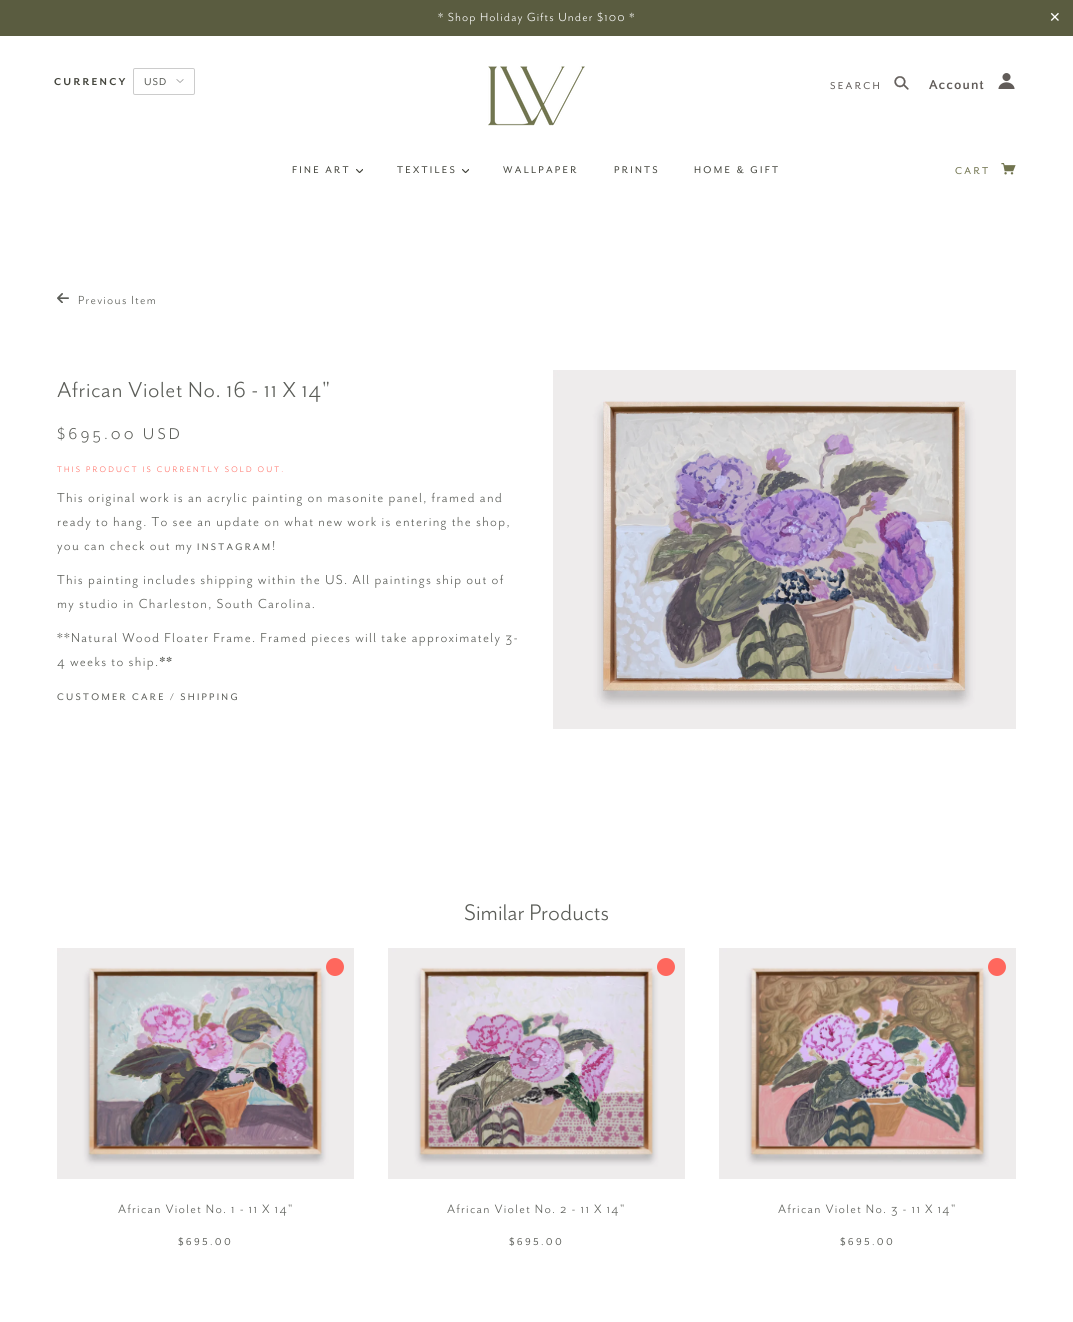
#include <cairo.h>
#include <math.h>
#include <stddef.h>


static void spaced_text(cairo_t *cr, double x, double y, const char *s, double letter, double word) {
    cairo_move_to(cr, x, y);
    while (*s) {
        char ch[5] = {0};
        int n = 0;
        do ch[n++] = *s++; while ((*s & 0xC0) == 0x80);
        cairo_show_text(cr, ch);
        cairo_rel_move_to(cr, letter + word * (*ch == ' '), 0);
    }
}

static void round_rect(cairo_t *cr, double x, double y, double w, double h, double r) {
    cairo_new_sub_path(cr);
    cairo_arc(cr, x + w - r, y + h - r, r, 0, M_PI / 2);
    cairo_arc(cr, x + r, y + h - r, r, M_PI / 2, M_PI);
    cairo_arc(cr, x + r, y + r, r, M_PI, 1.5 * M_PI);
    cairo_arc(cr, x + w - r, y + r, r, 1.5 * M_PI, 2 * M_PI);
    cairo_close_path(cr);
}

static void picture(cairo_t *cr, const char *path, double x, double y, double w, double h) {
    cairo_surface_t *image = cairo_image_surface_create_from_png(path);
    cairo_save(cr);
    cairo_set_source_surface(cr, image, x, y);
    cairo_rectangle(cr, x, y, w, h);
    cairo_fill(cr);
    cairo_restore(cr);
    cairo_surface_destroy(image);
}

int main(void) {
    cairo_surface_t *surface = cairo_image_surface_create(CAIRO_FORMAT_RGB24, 1073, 1322);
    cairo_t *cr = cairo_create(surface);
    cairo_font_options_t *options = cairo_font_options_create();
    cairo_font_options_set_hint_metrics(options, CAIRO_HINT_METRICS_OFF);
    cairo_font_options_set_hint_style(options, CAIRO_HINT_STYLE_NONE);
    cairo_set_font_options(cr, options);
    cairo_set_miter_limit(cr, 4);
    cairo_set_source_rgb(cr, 1, 1, 1);
    cairo_paint(cr);
    cairo_set_source_rgb(cr, 0.353, 0.361, 0.251);
    cairo_rectangle(cr, 0, 0, 1073, 36);
    cairo_fill(cr);
    cairo_select_font_face(cr, "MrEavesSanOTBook", CAIRO_FONT_SLANT_NORMAL, CAIRO_FONT_WEIGHT_NORMAL);
    cairo_set_font_size(cr, 13.5);
    cairo_set_source_rgb(cr, 1, 1, 1);
    spaced_text(cr, 438, 21, "* Shop Holiday Gifts Under $100 *", 1.1, 0);
    cairo_select_font_face(cr, "DejaVu Sans", CAIRO_FONT_SLANT_NORMAL, CAIRO_FONT_WEIGHT_NORMAL);
    cairo_set_font_size(cr, 14);
    spaced_text(cr, 1049, 22, "✕", 2.3, 0);
    cairo_select_font_face(cr, "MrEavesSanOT", CAIRO_FONT_SLANT_NORMAL, CAIRO_FONT_WEIGHT_BOLD);
    cairo_set_font_size(cr, 11.5);
    cairo_set_source_rgb(cr, 0.267, 0.271, 0.239);
    spaced_text(cr, 54, 85, "CURRENCY", 2.3, 0);
    picture(cr, "img1.png", 176, 79, 8, 4);
    round_rect(cr, 133.5, 68.5, 61, 26, 1.5);
    cairo_set_source_rgb(cr, 0.8, 0.8, 0.8);
    cairo_set_line_width(cr, 1);
    cairo_stroke(cr);
    cairo_select_font_face(cr, "MrEavesSanOT", CAIRO_FONT_SLANT_NORMAL, CAIRO_FONT_WEIGHT_NORMAL);
    cairo_set_source_rgb(cr, 0.357, 0.365, 0.345);
    spaced_text(cr, 144, 85, "USD", 1, 0);
    picture(cr, "img2.png", 488, 66, 97, 60);
    cairo_set_source_rgb(cr, 0.38, 0.361, 0.349);
    spaced_text(cr, 830, 89, "SEARCH", 2.3, 0);
    picture(cr, "img3.png", 894, 76, 15, 14);
    cairo_select_font_face(cr, "Quattrocento Sans", CAIRO_FONT_SLANT_NORMAL, CAIRO_FONT_WEIGHT_BOLD);
    cairo_set_font_size(cr, 13.5);
    spaced_text(cr, 929, 89, "Account", 1.1, 0);
    picture(cr, "img4.png", 998, 73, 17, 16);
    cairo_select_font_face(cr, "MrEavesSanOT", CAIRO_FONT_SLANT_NORMAL, CAIRO_FONT_WEIGHT_NORMAL);
    cairo_set_font_size(cr, 11.25);
    cairo_set_source_rgb(cr, 0.267, 0.271, 0.239);
    spaced_text(cr, 292, 173, "FINE ART", 2.3, 0);
    picture(cr, "img5.png", 356, 169, 7, 4);
    spaced_text(cr, 397, 173, "TEXTILES", 2.3, 0);
    picture(cr, "img5.png", 462, 169, 7, 4);
    spaced_text(cr, 503, 173, "WALLPAPER", 2.3, 0);
    spaced_text(cr, 614, 173, "PRINTS", 2.3, 0);
    spaced_text(cr, 694, 173, "HOME & GIFT", 2.3, 0);
    cairo_set_font_size(cr, 11.5);
    cairo_set_source_rgb(cr, 0.443, 0.455, 0.31);
    spaced_text(cr, 955, 174, "CART", 2.3, 0);
    picture(cr, "img6.png", 1001, 163, 15, 12);
    picture(cr, "img7.png", 57, 293, 12, 10);
    cairo_select_font_face(cr, "MrEavesSanOTBook", CAIRO_FONT_SLANT_NORMAL, CAIRO_FONT_WEIGHT_NORMAL);
    cairo_set_font_size(cr, 13.5);
    cairo_set_source_rgb(cr, 0.357, 0.365, 0.345);
    spaced_text(cr, 78, 304, "Previous Item", 1.3, 0);
    cairo_set_font_size(cr, 25);
    spaced_text(cr, 57, 397, "African Violet No. 16 - 11 X 14\"", 0.6, 0);
    cairo_set_font_size(cr, 18);
    spaced_text(cr, 57, 439, "$695.00 USD", 3.1, 0);
    cairo_set_font_size(cr, 9.25);
    cairo_set_source_rgb(cr, 1, 0.404, 0.365);
    spaced_text(cr, 57, 472, "THIS PRODUCT IS CURRENTLY SOLD OUT.", 2.2, 0);
    cairo_set_font_size(cr, 15);
    cairo_set_source_rgb(cr, 0.357, 0.365, 0.345);
    spaced_text(cr, 57, 502, "This original work is an acrylic painting on masonite panel, framed and", 1.3, 0);
    spaced_text(cr, 57, 526, "ready to hang. To see an update on what new work is entering the shop,", 1.3, 0);
    spaced_text(cr, 57, 550, "you can check out my", 1.3, 0);
    cairo_select_font_face(cr, "MrEavesSanOT", CAIRO_FONT_SLANT_NORMAL, CAIRO_FONT_WEIGHT_NORMAL);
    cairo_set_font_size(cr, 11);
    spaced_text(cr, 197, 550, "INSTAGRAM", 2.3, 0);
    cairo_select_font_face(cr, "MrEavesSanOTBook", CAIRO_FONT_SLANT_NORMAL, CAIRO_FONT_WEIGHT_NORMAL);
    cairo_set_font_size(cr, 15);
    spaced_text(cr, 272, 550, "!", 1.3, 0);
    spaced_text(cr, 57, 584, "This painting includes shipping within the US. All paintings ship out of", 1.3, 0);
    spaced_text(cr, 57, 608, "my studio in Charleston, South Carolina.", 1.3, 0);
    spaced_text(cr, 57, 642, "**Natural Wood Floater Frame. Framed pieces will take approximately 3-", 1.3, 0);
    spaced_text(cr, 57, 666, "4 weeks to ship.", 1.3, 0);
    cairo_select_font_face(cr, "MrEavesSanOT", CAIRO_FONT_SLANT_ITALIC, CAIRO_FONT_WEIGHT_NORMAL);
    spaced_text(cr, 159, 666, "**", 1.3, 0);
    cairo_select_font_face(cr, "MrEavesSanOT", CAIRO_FONT_SLANT_NORMAL, CAIRO_FONT_WEIGHT_NORMAL);
    cairo_set_font_size(cr, 11);
    spaced_text(cr, 57, 700, "CUSTOMER CARE / SHIPPING", 2.3, 0);
    picture(cr, "img8.png", 553, 370, 463, 359);
    cairo_select_font_face(cr, "MrEavesSanOTBook", CAIRO_FONT_SLANT_NORMAL, CAIRO_FONT_WEIGHT_NORMAL);
    cairo_set_font_size(cr, 26);
    cairo_move_to(cr, 464, 920);
    cairo_show_text(cr, "Similar Products");
    picture(cr, "img9.png", 57, 948, 297, 231);
    cairo_set_source_rgb(cr, 1, 0.404, 0.365);
    cairo_arc(cr, 335, 967, 9, 0, 2 * M_PI);
    cairo_fill(cr);
    cairo_set_font_size(cr, 14);
    cairo_set_source_rgb(cr, 0.357, 0.365, 0.345);
    spaced_text(cr, 118, 1213, "African Violet No. 1 - 11 X 14\"", 1.3, 0);
    cairo_select_font_face(cr, "Quattrocento Sans", CAIRO_FONT_SLANT_NORMAL, CAIRO_FONT_WEIGHT_NORMAL);
    cairo_set_font_size(cr, 10.5);
    spaced_text(cr, 178, 1245, "$695.00", 2.3, 0);
    picture(cr, "img10.png", 388, 948, 297, 231);
    cairo_set_source_rgb(cr, 1, 0.404, 0.365);
    cairo_arc(cr, 666, 967, 9, 0, 2 * M_PI);
    cairo_fill(cr);
    cairo_select_font_face(cr, "MrEavesSanOTBook", CAIRO_FONT_SLANT_NORMAL, CAIRO_FONT_WEIGHT_NORMAL);
    cairo_set_font_size(cr, 14);
    cairo_set_source_rgb(cr, 0.357, 0.365, 0.345);
    spaced_text(cr, 447, 1213, "African Violet No. 2 - 11 X 14\"", 1.3, 0);
    cairo_select_font_face(cr, "Quattrocento Sans", CAIRO_FONT_SLANT_NORMAL, CAIRO_FONT_WEIGHT_NORMAL);
    cairo_set_font_size(cr, 10.5);
    spaced_text(cr, 509, 1245, "$695.00", 2.3, 0);
    picture(cr, "img11.png", 719, 948, 297, 231);
    cairo_set_source_rgb(cr, 1, 0.404, 0.365);
    cairo_arc(cr, 997, 967, 9, 0, 2 * M_PI);
    cairo_fill(cr);
    cairo_select_font_face(cr, "MrEavesSanOTBook", CAIRO_FONT_SLANT_NORMAL, CAIRO_FONT_WEIGHT_NORMAL);
    cairo_set_font_size(cr, 14);
    cairo_set_source_rgb(cr, 0.357, 0.365, 0.345);
    spaced_text(cr, 778, 1213, "African Violet No. 3 - 11 X 14\"", 1.3, 0);
    cairo_select_font_face(cr, "Quattrocento Sans", CAIRO_FONT_SLANT_NORMAL, CAIRO_FONT_WEIGHT_NORMAL);
    cairo_set_font_size(cr, 10.5);
    spaced_text(cr, 840, 1245, "$695.00", 2.3, 0);
    cairo_surface_write_to_png(surface, "page.png");
    cairo_font_options_destroy(options);
    cairo_destroy(cr);
    cairo_surface_destroy(surface);
    return 0;
}
